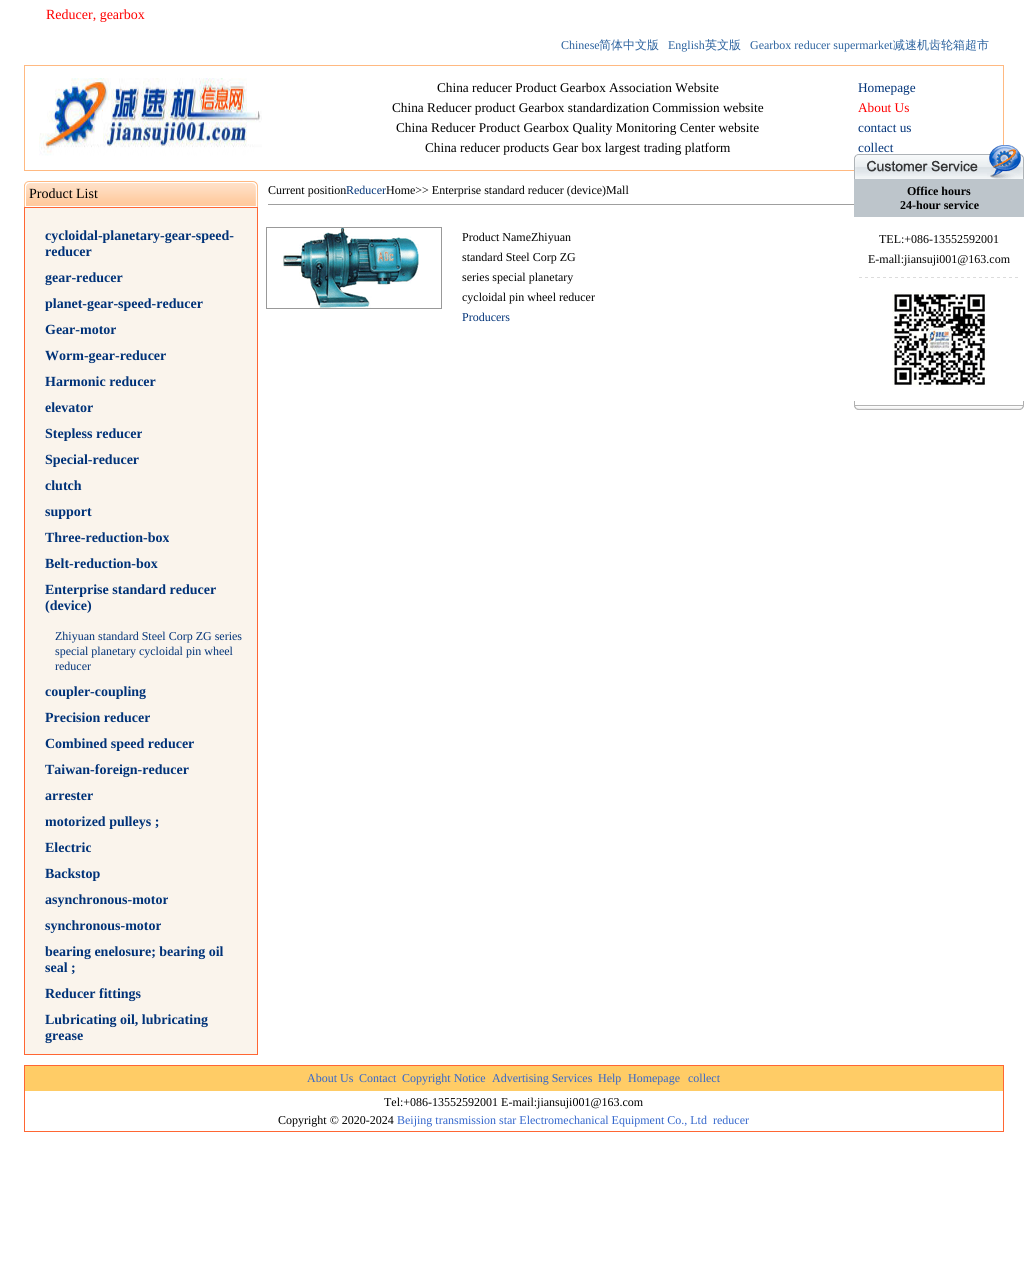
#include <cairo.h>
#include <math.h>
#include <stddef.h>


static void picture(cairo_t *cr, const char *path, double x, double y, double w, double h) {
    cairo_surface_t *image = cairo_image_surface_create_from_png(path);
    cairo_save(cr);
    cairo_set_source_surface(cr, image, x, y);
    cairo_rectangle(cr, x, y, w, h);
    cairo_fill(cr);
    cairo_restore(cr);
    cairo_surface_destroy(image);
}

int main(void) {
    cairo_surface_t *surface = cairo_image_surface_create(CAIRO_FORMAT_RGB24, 1027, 1279);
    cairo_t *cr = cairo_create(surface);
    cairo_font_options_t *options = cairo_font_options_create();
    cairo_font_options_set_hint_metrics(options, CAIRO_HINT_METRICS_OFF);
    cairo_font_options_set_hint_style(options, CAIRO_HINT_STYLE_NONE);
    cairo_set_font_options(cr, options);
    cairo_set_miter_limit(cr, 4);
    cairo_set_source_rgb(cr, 1, 1, 1);
    cairo_paint(cr);
    cairo_select_font_face(cr, "Liberation Serif", CAIRO_FONT_SLANT_NORMAL, CAIRO_FONT_WEIGHT_NORMAL);
    cairo_set_font_size(cr, 14);
    cairo_set_source_rgb(cr, 1, 0, 0);
    cairo_move_to(cr, 46, 19);
    cairo_show_text(cr, "Reducer, gearbox");
    cairo_set_font_size(cr, 12);
    cairo_set_source_rgb(cr, 0.173, 0.384, 0.62);
    cairo_move_to(cr, 561, 49);
    cairo_show_text(cr, "Chinese");
    cairo_select_font_face(cr, "WenQuanYi Zen Hei Medium", CAIRO_FONT_SLANT_NORMAL, CAIRO_FONT_WEIGHT_NORMAL);
    cairo_move_to(cr, 599, 49);
    cairo_show_text(cr, "简体中文版");
    cairo_select_font_face(cr, "Liberation Serif", CAIRO_FONT_SLANT_NORMAL, CAIRO_FONT_WEIGHT_NORMAL);
    cairo_move_to(cr, 668, 49);
    cairo_show_text(cr, "English");
    cairo_select_font_face(cr, "WenQuanYi Zen Hei Medium", CAIRO_FONT_SLANT_NORMAL, CAIRO_FONT_WEIGHT_NORMAL);
    cairo_move_to(cr, 705, 49);
    cairo_show_text(cr, "英文版");
    cairo_select_font_face(cr, "Liberation Serif", CAIRO_FONT_SLANT_NORMAL, CAIRO_FONT_WEIGHT_NORMAL);
    cairo_move_to(cr, 750, 49);
    cairo_show_text(cr, "Gearbox reducer supermarket");
    cairo_select_font_face(cr, "WenQuanYi Zen Hei Medium", CAIRO_FONT_SLANT_NORMAL, CAIRO_FONT_WEIGHT_NORMAL);
    cairo_move_to(cr, 893, 49);
    cairo_show_text(cr, "减速机齿轮箱超市");
    cairo_rectangle(cr, 24.5, 65.5, 979, 105);
    cairo_set_source_rgb(cr, 1, 0.725, 0.506);
    cairo_set_line_width(cr, 1);
    cairo_stroke(cr);
    picture(cr, "img1.png", 39, 78, 223, 78);
    cairo_select_font_face(cr, "Liberation Serif", CAIRO_FONT_SLANT_NORMAL, CAIRO_FONT_WEIGHT_NORMAL);
    cairo_set_font_size(cr, 13.3);
    cairo_set_source_rgb(cr, 0, 0, 0);
    cairo_move_to(cr, 437, 92);
    cairo_show_text(cr, "China reducer Product Gearbox Association Website");
    cairo_move_to(cr, 392, 112);
    cairo_show_text(cr, "China Reducer product Gearbox standardization Commission website");
    cairo_move_to(cr, 396, 132);
    cairo_show_text(cr, "China Reducer Product Gearbox Quality Monitoring Center website");
    cairo_move_to(cr, 425, 152);
    cairo_show_text(cr, "China reducer products Gear box largest trading platform");
    cairo_set_source_rgb(cr, 0, 0.196, 0.471);
    cairo_move_to(cr, 858, 92);
    cairo_show_text(cr, "Homepage");
    cairo_set_source_rgb(cr, 1, 0, 0);
    cairo_move_to(cr, 858, 112);
    cairo_show_text(cr, "About Us");
    cairo_set_source_rgb(cr, 0, 0.196, 0.471);
    cairo_move_to(cr, 858, 132);
    cairo_show_text(cr, "contact us");
    cairo_move_to(cr, 858, 152);
    cairo_show_text(cr, "collect");
    picture(cr, "img2.png", 24, 181, 234, 26);
    cairo_set_font_size(cr, 14);
    cairo_set_source_rgb(cr, 0, 0, 0);
    cairo_move_to(cr, 29, 198);
    cairo_show_text(cr, "Product List");
    cairo_set_source_rgb(cr, 0.98, 0.957, 0.922);
    cairo_rectangle(cr, 24.5, 207.5, 233, 847);
    cairo_fill_preserve(cr);
    cairo_set_source_rgb(cr, 1, 0.4, 0.2);
    cairo_stroke(cr);
    cairo_select_font_face(cr, "Liberation Serif", CAIRO_FONT_SLANT_NORMAL, CAIRO_FONT_WEIGHT_BOLD);
    cairo_set_source_rgb(cr, 0, 0.196, 0.471);
    cairo_move_to(cr, 45, 240);
    cairo_show_text(cr, "cycloidal-planetary-gear-speed-");
    cairo_move_to(cr, 45, 256);
    cairo_show_text(cr, "reducer");
    cairo_move_to(cr, 45, 282);
    cairo_show_text(cr, "gear-reducer");
    cairo_move_to(cr, 45, 308);
    cairo_show_text(cr, "planet-gear-speed-reducer");
    cairo_move_to(cr, 45, 334);
    cairo_show_text(cr, "Gear-motor");
    cairo_move_to(cr, 45, 360);
    cairo_show_text(cr, "Worm-gear-reducer");
    cairo_move_to(cr, 45, 386);
    cairo_show_text(cr, "Harmonic reducer");
    cairo_move_to(cr, 45, 412);
    cairo_show_text(cr, "elevator");
    cairo_move_to(cr, 45, 438);
    cairo_show_text(cr, "Stepless reducer");
    cairo_move_to(cr, 45, 464);
    cairo_show_text(cr, "Special-reducer");
    cairo_move_to(cr, 45, 490);
    cairo_show_text(cr, "clutch");
    cairo_move_to(cr, 45, 516);
    cairo_show_text(cr, "support");
    cairo_move_to(cr, 45, 542);
    cairo_show_text(cr, "Three-reduction-box");
    cairo_move_to(cr, 45, 568);
    cairo_show_text(cr, "Belt-reduction-box");
    cairo_move_to(cr, 45, 594);
    cairo_show_text(cr, "Enterprise standard reducer");
    cairo_move_to(cr, 45, 610);
    cairo_show_text(cr, "(device)");
    cairo_select_font_face(cr, "Liberation Serif", CAIRO_FONT_SLANT_NORMAL, CAIRO_FONT_WEIGHT_NORMAL);
    cairo_set_font_size(cr, 12);
    cairo_move_to(cr, 55, 640);
    cairo_show_text(cr, "Zhiyuan standard Steel Corp ZG series");
    cairo_move_to(cr, 55, 655);
    cairo_show_text(cr, "special planetary cycloidal pin wheel");
    cairo_move_to(cr, 55, 670);
    cairo_show_text(cr, "reducer");
    cairo_select_font_face(cr, "Liberation Serif", CAIRO_FONT_SLANT_NORMAL, CAIRO_FONT_WEIGHT_BOLD);
    cairo_set_font_size(cr, 14);
    cairo_move_to(cr, 45, 696);
    cairo_show_text(cr, "coupler-coupling");
    cairo_move_to(cr, 45, 722);
    cairo_show_text(cr, "Precision reducer");
    cairo_move_to(cr, 45, 748);
    cairo_show_text(cr, "Combined speed reducer");
    cairo_move_to(cr, 45, 774);
    cairo_show_text(cr, "Taiwan-foreign-reducer");
    cairo_move_to(cr, 45, 800);
    cairo_show_text(cr, "arrester");
    cairo_move_to(cr, 45, 826);
    cairo_show_text(cr, "motorized pulleys ;");
    cairo_move_to(cr, 45, 852);
    cairo_show_text(cr, "Electric");
    cairo_move_to(cr, 45, 878);
    cairo_show_text(cr, "Backstop");
    cairo_move_to(cr, 45, 904);
    cairo_show_text(cr, "asynchronous-motor");
    cairo_move_to(cr, 45, 930);
    cairo_show_text(cr, "synchronous-motor");
    cairo_move_to(cr, 45, 956);
    cairo_show_text(cr, "bearing enelosure; bearing oil");
    cairo_move_to(cr, 45, 972);
    cairo_show_text(cr, "seal ;");
    cairo_move_to(cr, 45, 998);
    cairo_show_text(cr, "Reducer fittings");
    cairo_move_to(cr, 45, 1024);
    cairo_show_text(cr, "Lubricating oil, lubricating");
    cairo_move_to(cr, 45, 1040);
    cairo_show_text(cr, "grease");
    cairo_select_font_face(cr, "Liberation Serif", CAIRO_FONT_SLANT_NORMAL, CAIRO_FONT_WEIGHT_NORMAL);
    cairo_set_font_size(cr, 12);
    cairo_set_source_rgb(cr, 0, 0, 0);
    cairo_move_to(cr, 268, 194);
    cairo_show_text(cr, "Current position");
    cairo_set_source_rgb(cr, 0, 0.196, 0.471);
    cairo_move_to(cr, 346, 194);
    cairo_show_text(cr, "Reducer");
    cairo_set_source_rgb(cr, 0, 0, 0);
    cairo_move_to(cr, 386, 194);
    cairo_show_text(cr, "Home>> Enterprise standard reducer (device)Mall");
    cairo_set_source_rgb(cr, 0.624, 0.624, 0.624);
    cairo_rectangle(cr, 268, 204, 586, 1);
    cairo_fill(cr);
    cairo_rectangle(cr, 266.5, 227.5, 175, 81);
    cairo_set_source_rgb(cr, 0.6, 0.6, 0.6);
    cairo_stroke(cr);
    picture(cr, "img3.png", 282, 228, 138, 80);
    cairo_set_source_rgb(cr, 0, 0, 0);
    cairo_move_to(cr, 462, 241);
    cairo_show_text(cr, "Product NameZhiyuan");
    cairo_move_to(cr, 462, 261);
    cairo_show_text(cr, "standard Steel Corp ZG");
    cairo_move_to(cr, 462, 281);
    cairo_show_text(cr, "series special planetary");
    cairo_move_to(cr, 462, 301);
    cairo_show_text(cr, "cycloidal pin wheel reducer");
    cairo_set_source_rgb(cr, 0, 0.196, 0.471);
    cairo_move_to(cr, 462, 321);
    cairo_show_text(cr, "Producers");
    cairo_rectangle(cr, 24.5, 1065.5, 979, 66);
    cairo_set_source_rgb(cr, 1, 0.4, 0.2);
    cairo_stroke(cr);
    picture(cr, "img4.png", 854, 145, 170, 34);
    cairo_set_source_rgb(cr, 0.741, 0.773, 0.796);
    cairo_rectangle(cr, 854, 179, 170, 38);
    cairo_fill(cr);
    cairo_select_font_face(cr, "Liberation Serif", CAIRO_FONT_SLANT_NORMAL, CAIRO_FONT_WEIGHT_BOLD);
    cairo_set_source_rgb(cr, 0, 0, 0);
    cairo_move_to(cr, 907, 195);
    cairo_show_text(cr, "Office hours");
    cairo_move_to(cr, 900, 209);
    cairo_show_text(cr, "24-hour service");
    cairo_select_font_face(cr, "Liberation Serif", CAIRO_FONT_SLANT_NORMAL, CAIRO_FONT_WEIGHT_NORMAL);
    cairo_move_to(cr, 879, 243);
    cairo_show_text(cr, "TEL:+086-13552592001");
    cairo_move_to(cr, 868, 263);
    cairo_show_text(cr, "E-mall:jiansuji001@163.com");
    picture(cr, "img5.png", 859, 277, 159, 1);
    picture(cr, "img6.png", 892, 292, 95, 95);
    picture(cr, "img7.png", 854, 401, 170, 9);
    cairo_set_source_rgb(cr, 1, 0.8, 0.4);
    cairo_rectangle(cr, 25, 1066, 978, 25);
    cairo_fill(cr);
    cairo_set_source_rgb(cr, 0.2, 0.4, 0.8);
    cairo_move_to(cr, 307, 1082);
    cairo_show_text(cr, "About Us");
    cairo_move_to(cr, 359, 1082);
    cairo_show_text(cr, "Contact");
    cairo_move_to(cr, 402, 1082);
    cairo_show_text(cr, "Copyright Notice");
    cairo_move_to(cr, 492, 1082);
    cairo_show_text(cr, "Advertising Services");
    cairo_move_to(cr, 598, 1082);
    cairo_show_text(cr, "Help");
    cairo_move_to(cr, 628, 1082);
    cairo_show_text(cr, "Homepage");
    cairo_move_to(cr, 688, 1082);
    cairo_show_text(cr, "collect");
    cairo_set_source_rgb(cr, 0, 0, 0);
    cairo_move_to(cr, 384, 1106);
    cairo_show_text(cr, "Tel:+086-13552592001 E-mail:jiansuji001@163.com");
    cairo_move_to(cr, 278, 1124);
    cairo_show_text(cr, "Copyright © 2020-2024");
    cairo_set_source_rgb(cr, 0.2, 0.4, 0.8);
    cairo_move_to(cr, 397, 1124);
    cairo_show_text(cr, "Beijing transmission star Electromechanical Equipment Co., Ltd");
    cairo_move_to(cr, 713, 1124);
    cairo_show_text(cr, "reducer");
    cairo_surface_write_to_png(surface, "page.png");
    cairo_font_options_destroy(options);
    cairo_destroy(cr);
    cairo_surface_destroy(surface);
    return 0;
}
